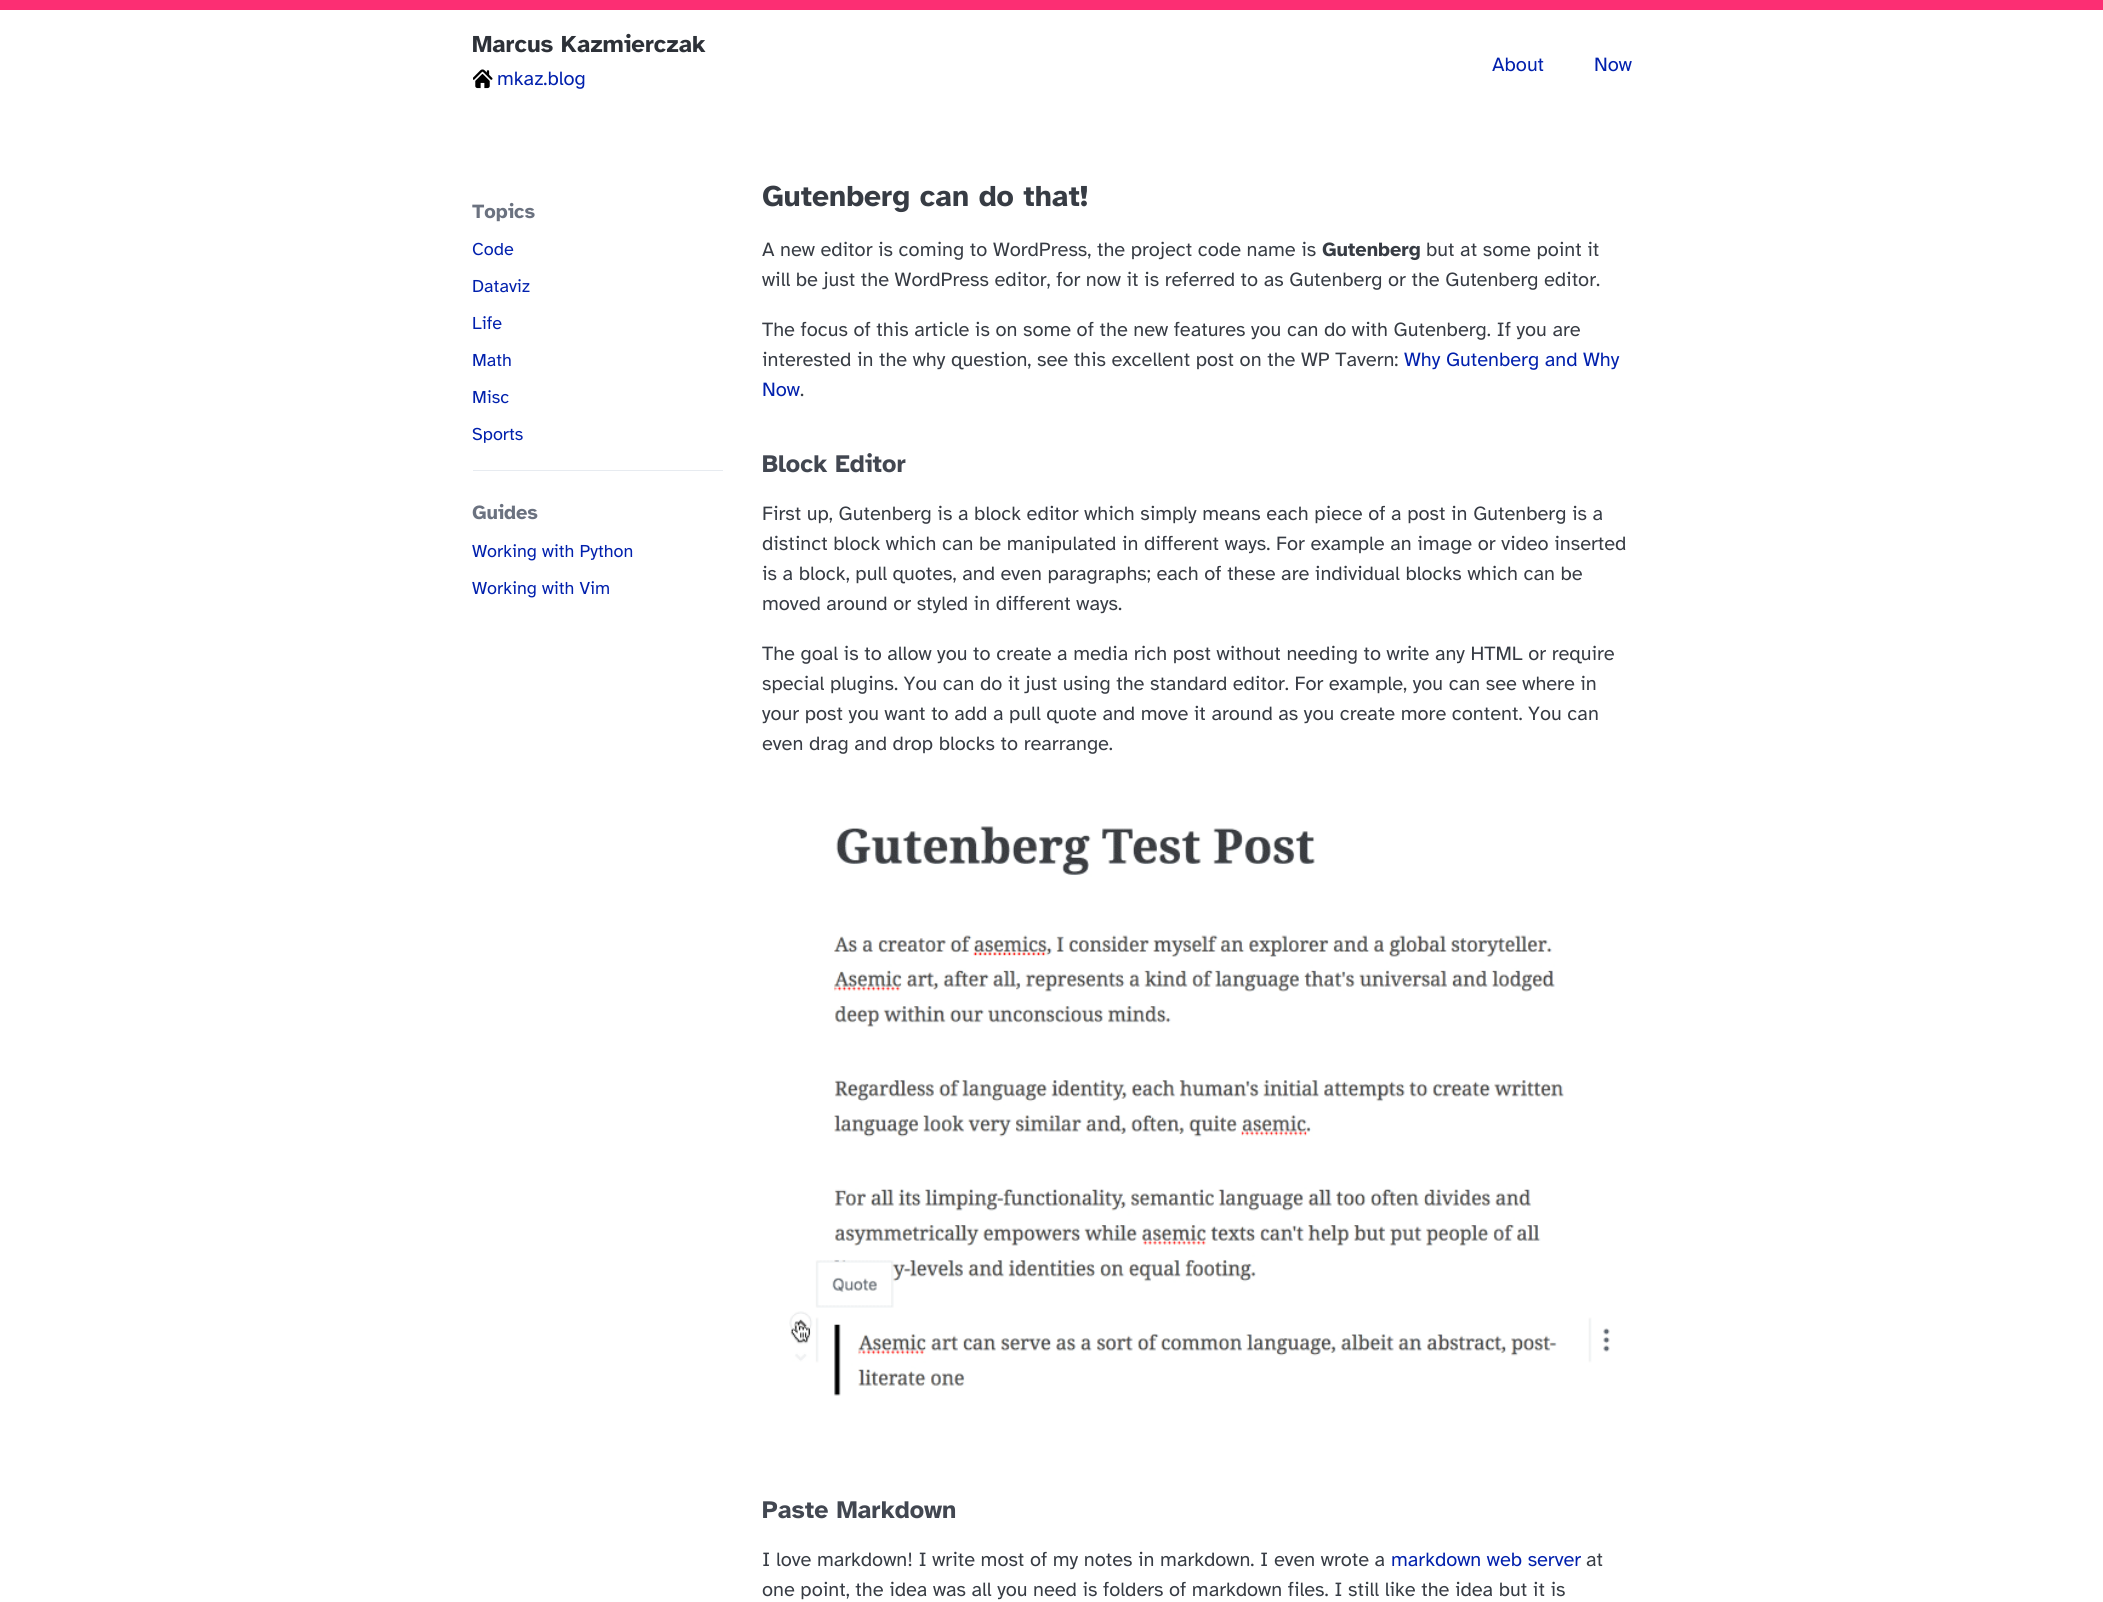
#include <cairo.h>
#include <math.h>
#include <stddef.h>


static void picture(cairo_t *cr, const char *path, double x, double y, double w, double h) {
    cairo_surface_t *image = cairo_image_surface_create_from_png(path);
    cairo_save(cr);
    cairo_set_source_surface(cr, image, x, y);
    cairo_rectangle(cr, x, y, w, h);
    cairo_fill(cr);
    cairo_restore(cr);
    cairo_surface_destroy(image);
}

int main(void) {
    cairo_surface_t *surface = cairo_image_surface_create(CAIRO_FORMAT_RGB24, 2103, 1602);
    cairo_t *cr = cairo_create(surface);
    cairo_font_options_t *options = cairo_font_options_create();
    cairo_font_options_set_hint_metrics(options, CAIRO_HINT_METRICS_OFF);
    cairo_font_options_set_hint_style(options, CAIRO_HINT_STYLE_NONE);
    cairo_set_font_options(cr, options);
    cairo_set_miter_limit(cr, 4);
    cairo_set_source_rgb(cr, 1, 1, 1);
    cairo_paint(cr);
    cairo_set_source_rgb(cr, 0.988, 0.18, 0.451);
    cairo_rectangle(cr, 0, 0, 2103, 10);
    cairo_fill(cr);
    cairo_select_font_face(cr, "Atkinson Hyperlegible", CAIRO_FONT_SLANT_NORMAL, CAIRO_FONT_WEIGHT_BOLD);
    cairo_set_font_size(cr, 24);
    cairo_set_source_rgb(cr, 0.176, 0.192, 0.22);
    cairo_move_to(cr, 472, 52);
    cairo_show_text(cr, "Marcus Kazmierczak");
    picture(cr, "img1.png", 473, 69, 20, 20);
    cairo_select_font_face(cr, "Atkinson Hyperlegible", CAIRO_FONT_SLANT_NORMAL, CAIRO_FONT_WEIGHT_NORMAL);
    cairo_set_font_size(cr, 20);
    cairo_set_source_rgb(cr, 0.004, 0.125, 0.678);
    cairo_move_to(cr, 497, 85);
    cairo_show_text(cr, "mkaz.blog");
    cairo_move_to(cr, 1492, 71);
    cairo_show_text(cr, "About");
    cairo_move_to(cr, 1594, 71);
    cairo_show_text(cr, "Now");
    cairo_select_font_face(cr, "Atkinson Hyperlegible", CAIRO_FONT_SLANT_NORMAL, CAIRO_FONT_WEIGHT_BOLD);
    cairo_set_source_rgb(cr, 0.42, 0.447, 0.502);
    cairo_move_to(cr, 472, 218);
    cairo_show_text(cr, "Topics");
    cairo_select_font_face(cr, "Atkinson Hyperlegible", CAIRO_FONT_SLANT_NORMAL, CAIRO_FONT_WEIGHT_NORMAL);
    cairo_set_font_size(cr, 18);
    cairo_set_source_rgb(cr, 0.004, 0.125, 0.678);
    cairo_move_to(cr, 472, 255);
    cairo_show_text(cr, "Code");
    cairo_move_to(cr, 472, 292);
    cairo_show_text(cr, "Dataviz");
    cairo_move_to(cr, 472, 329);
    cairo_show_text(cr, "Life");
    cairo_move_to(cr, 472, 366);
    cairo_show_text(cr, "Math");
    cairo_move_to(cr, 472, 403);
    cairo_show_text(cr, "Misc");
    cairo_move_to(cr, 472, 440);
    cairo_show_text(cr, "Sports");
    cairo_set_source_rgb(cr, 0.906, 0.918, 0.941);
    cairo_rectangle(cr, 473, 470, 250, 1);
    cairo_fill(cr);
    cairo_select_font_face(cr, "Atkinson Hyperlegible", CAIRO_FONT_SLANT_NORMAL, CAIRO_FONT_WEIGHT_BOLD);
    cairo_set_font_size(cr, 20);
    cairo_set_source_rgb(cr, 0.42, 0.447, 0.502);
    cairo_move_to(cr, 472, 519);
    cairo_show_text(cr, "Guides");
    cairo_select_font_face(cr, "Atkinson Hyperlegible", CAIRO_FONT_SLANT_NORMAL, CAIRO_FONT_WEIGHT_NORMAL);
    cairo_set_font_size(cr, 18);
    cairo_set_source_rgb(cr, 0.004, 0.125, 0.678);
    cairo_move_to(cr, 472, 557);
    cairo_show_text(cr, "Working with Python");
    cairo_move_to(cr, 472, 594);
    cairo_show_text(cr, "Working with Vim");
    cairo_select_font_face(cr, "Atkinson Hyperlegible", CAIRO_FONT_SLANT_NORMAL, CAIRO_FONT_WEIGHT_BOLD);
    cairo_set_font_size(cr, 30);
    cairo_set_source_rgb(cr, 0.216, 0.235, 0.267);
    cairo_move_to(cr, 762, 206);
    cairo_show_text(cr, "Gutenberg can do that!");
    cairo_select_font_face(cr, "Atkinson Hyperlegible", CAIRO_FONT_SLANT_NORMAL, CAIRO_FONT_WEIGHT_NORMAL);
    cairo_set_font_size(cr, 20);
    cairo_move_to(cr, 762, 256);
    cairo_show_text(cr, "A new editor is coming to WordPress, the project code name is");
    cairo_select_font_face(cr, "Atkinson Hyperlegible", CAIRO_FONT_SLANT_NORMAL, CAIRO_FONT_WEIGHT_BOLD);
    cairo_move_to(cr, 1322, 256);
    cairo_show_text(cr, "Gutenberg");
    cairo_select_font_face(cr, "Atkinson Hyperlegible", CAIRO_FONT_SLANT_NORMAL, CAIRO_FONT_WEIGHT_NORMAL);
    cairo_move_to(cr, 1426, 256);
    cairo_show_text(cr, "but at some point it");
    cairo_move_to(cr, 762, 286);
    cairo_show_text(cr, "will be just the WordPress editor, for now it is referred to as Gutenberg or the Gutenberg editor.");
    cairo_move_to(cr, 762, 336);
    cairo_show_text(cr, "The focus of this article is on some of the new features you can do with Gutenberg. If you are");
    cairo_move_to(cr, 762, 366);
    cairo_show_text(cr, "interested in the why question, see this excellent post on the WP Tavern:");
    cairo_set_source_rgb(cr, 0.004, 0.125, 0.678);
    cairo_move_to(cr, 1404, 366);
    cairo_show_text(cr, "Why Gutenberg and Why");
    cairo_move_to(cr, 762, 396);
    cairo_show_text(cr, "Now");
    cairo_set_source_rgb(cr, 0.216, 0.235, 0.267);
    cairo_move_to(cr, 800, 396);
    cairo_show_text(cr, ".");
    cairo_select_font_face(cr, "Atkinson Hyperlegible", CAIRO_FONT_SLANT_NORMAL, CAIRO_FONT_WEIGHT_BOLD);
    cairo_set_font_size(cr, 25);
    cairo_set_source_rgb(cr, 0.259, 0.278, 0.318);
    cairo_move_to(cr, 762, 472);
    cairo_show_text(cr, "Block Editor");
    cairo_select_font_face(cr, "Atkinson Hyperlegible", CAIRO_FONT_SLANT_NORMAL, CAIRO_FONT_WEIGHT_NORMAL);
    cairo_set_font_size(cr, 20);
    cairo_set_source_rgb(cr, 0.216, 0.235, 0.267);
    cairo_move_to(cr, 762, 520);
    cairo_show_text(cr, "First up, Gutenberg is a block editor which simply means each piece of a post in Gutenberg is a");
    cairo_move_to(cr, 762, 550);
    cairo_show_text(cr, "distinct block which can be manipulated in different ways. For example an image or video inserted");
    cairo_move_to(cr, 762, 580);
    cairo_show_text(cr, "is a block, pull quotes, and even paragraphs; each of these are individual blocks which can be");
    cairo_move_to(cr, 762, 610);
    cairo_show_text(cr, "moved around or styled in different ways.");
    cairo_move_to(cr, 762, 660);
    cairo_show_text(cr, "The goal is to allow you to create a media rich post without needing to write any HTML or require");
    cairo_move_to(cr, 762, 690);
    cairo_show_text(cr, "special plugins. You can do it just using the standard editor. For example, you can see where in");
    cairo_move_to(cr, 762, 720);
    cairo_show_text(cr, "your post you want to add a pull quote and move it around as you create more content. You can");
    cairo_move_to(cr, 762, 750);
    cairo_show_text(cr, "even drag and drop blocks to rearrange.");
    picture(cr, "img2.png", 789, 826, 821, 570);
    cairo_select_font_face(cr, "Atkinson Hyperlegible", CAIRO_FONT_SLANT_NORMAL, CAIRO_FONT_WEIGHT_BOLD);
    cairo_set_font_size(cr, 25);
    cairo_set_source_rgb(cr, 0.259, 0.278, 0.318);
    cairo_move_to(cr, 762, 1518);
    cairo_show_text(cr, "Paste Markdown");
    cairo_select_font_face(cr, "Atkinson Hyperlegible", CAIRO_FONT_SLANT_NORMAL, CAIRO_FONT_WEIGHT_NORMAL);
    cairo_set_font_size(cr, 20);
    cairo_set_source_rgb(cr, 0.216, 0.235, 0.267);
    cairo_move_to(cr, 762, 1566);
    cairo_show_text(cr, "I love markdown! I write most of my notes in markdown. I even wrote a");
    cairo_set_source_rgb(cr, 0.004, 0.125, 0.678);
    cairo_move_to(cr, 1391, 1566);
    cairo_show_text(cr, "markdown web server");
    cairo_set_source_rgb(cr, 0.216, 0.235, 0.267);
    cairo_move_to(cr, 1586, 1566);
    cairo_show_text(cr, "at");
    cairo_move_to(cr, 762, 1596);
    cairo_show_text(cr, "one point, the idea was all you need is folders of markdown files. I still like the idea but it is");
    cairo_surface_write_to_png(surface, "page.png");
    cairo_font_options_destroy(options);
    cairo_destroy(cr);
    cairo_surface_destroy(surface);
    return 0;
}
